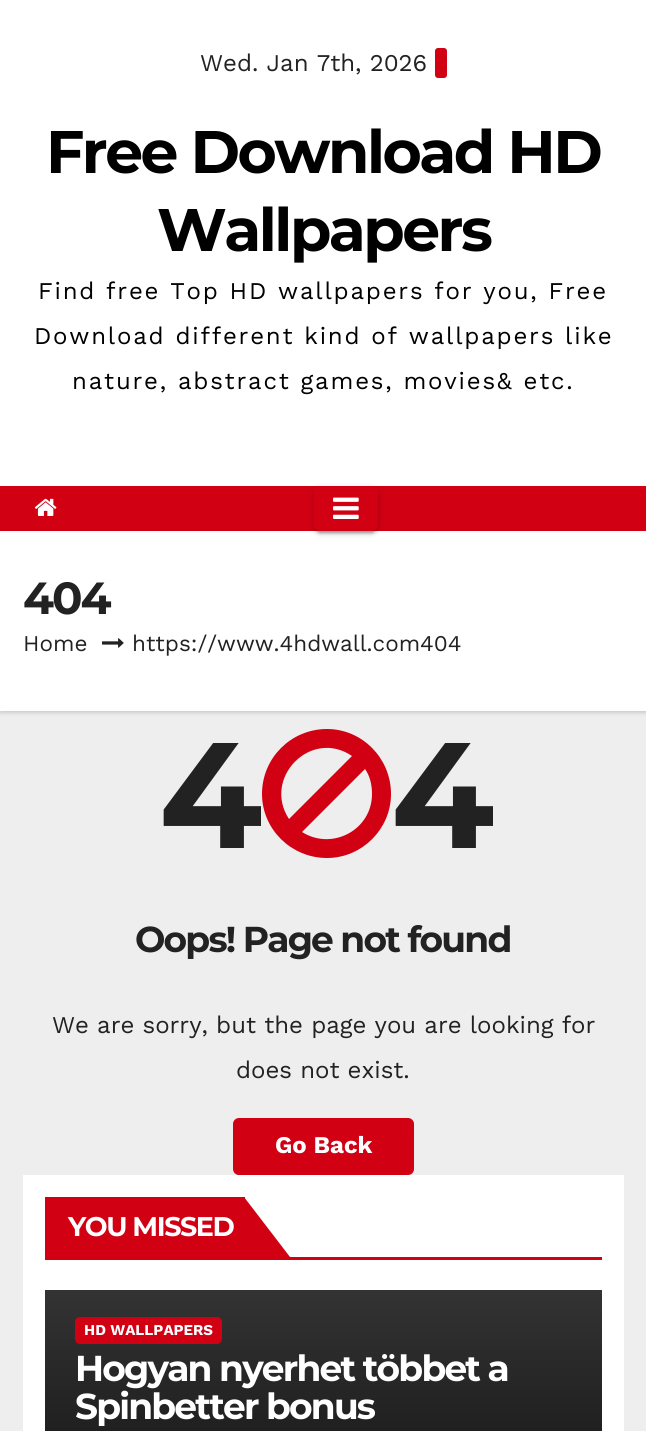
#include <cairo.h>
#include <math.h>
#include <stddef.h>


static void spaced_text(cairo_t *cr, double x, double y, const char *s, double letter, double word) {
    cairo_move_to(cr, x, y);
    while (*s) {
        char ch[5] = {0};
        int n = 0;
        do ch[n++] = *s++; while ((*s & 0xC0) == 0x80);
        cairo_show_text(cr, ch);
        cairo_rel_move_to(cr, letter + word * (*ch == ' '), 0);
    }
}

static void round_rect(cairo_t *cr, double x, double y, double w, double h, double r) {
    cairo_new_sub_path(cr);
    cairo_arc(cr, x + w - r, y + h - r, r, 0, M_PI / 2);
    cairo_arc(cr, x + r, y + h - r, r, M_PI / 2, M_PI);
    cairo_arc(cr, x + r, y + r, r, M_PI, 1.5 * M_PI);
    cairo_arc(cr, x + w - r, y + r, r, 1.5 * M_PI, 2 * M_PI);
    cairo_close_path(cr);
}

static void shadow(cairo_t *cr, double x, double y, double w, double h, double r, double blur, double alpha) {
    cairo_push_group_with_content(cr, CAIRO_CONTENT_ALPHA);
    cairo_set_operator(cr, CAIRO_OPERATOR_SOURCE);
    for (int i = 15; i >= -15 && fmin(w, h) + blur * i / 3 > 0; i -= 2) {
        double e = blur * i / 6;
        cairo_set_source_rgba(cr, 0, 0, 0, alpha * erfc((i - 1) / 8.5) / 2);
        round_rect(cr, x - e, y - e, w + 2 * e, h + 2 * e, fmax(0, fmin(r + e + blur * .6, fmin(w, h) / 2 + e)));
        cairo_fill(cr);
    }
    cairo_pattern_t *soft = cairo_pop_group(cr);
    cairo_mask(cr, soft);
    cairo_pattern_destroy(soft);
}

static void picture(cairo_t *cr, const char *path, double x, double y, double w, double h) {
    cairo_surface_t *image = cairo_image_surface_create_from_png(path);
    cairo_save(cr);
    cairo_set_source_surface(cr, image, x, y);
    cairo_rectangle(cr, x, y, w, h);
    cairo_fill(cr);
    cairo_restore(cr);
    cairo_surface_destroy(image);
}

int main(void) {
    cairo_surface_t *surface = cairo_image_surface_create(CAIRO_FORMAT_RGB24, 646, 1431);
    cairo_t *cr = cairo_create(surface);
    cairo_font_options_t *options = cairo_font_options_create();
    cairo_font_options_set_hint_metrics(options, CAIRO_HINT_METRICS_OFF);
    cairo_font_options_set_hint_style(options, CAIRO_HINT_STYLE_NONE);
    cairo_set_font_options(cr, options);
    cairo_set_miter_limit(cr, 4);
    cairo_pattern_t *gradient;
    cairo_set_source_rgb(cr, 0.933, 0.933, 0.933);
    cairo_paint(cr);
    cairo_set_source_rgb(cr, 1, 1, 1);
    cairo_rectangle(cr, 0, 0, 646, 486);
    cairo_fill(cr);
    cairo_select_font_face(cr, "Work Sans", CAIRO_FONT_SLANT_NORMAL, CAIRO_FONT_WEIGHT_NORMAL);
    cairo_set_font_size(cr, 24);
    cairo_set_source_rgb(cr, 0.133, 0.133, 0.133);
    cairo_move_to(cr, 200, 71);
    cairo_show_text(cr, "Wed. Jan 7th, 2026");
    cairo_set_source_rgb(cr, 0.82, 0, 0.078);
    round_rect(cr, 435, 48, 12, 30, 3);
    cairo_fill(cr);
    cairo_select_font_face(cr, "Montserrat", CAIRO_FONT_SLANT_NORMAL, CAIRO_FONT_WEIGHT_BOLD);
    cairo_set_font_size(cr, 60);
    cairo_set_source_rgb(cr, 0, 0, 0);
    spaced_text(cr, 46, 173, "Free Download HD", -2.5, 0);
    spaced_text(cr, 157, 251, "Wallpapers", -2.5, 0);
    cairo_select_font_face(cr, "Work Sans", CAIRO_FONT_SLANT_NORMAL, CAIRO_FONT_WEIGHT_NORMAL);
    cairo_set_font_size(cr, 24);
    spaced_text(cr, 38, 299, "Find free Top HD wallpapers for you, Free", 1.8, 0);
    spaced_text(cr, 34, 344, "Download different kind of wallpapers like", 1.8, 0);
    spaced_text(cr, 72, 389, "nature, abstract games, movies& etc.", 1.8, 0);
    cairo_set_source_rgb(cr, 0, 0, 0);
    shadow(cr, 0, 533, 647, 180, 0, 2, 0.15);
    cairo_set_source_rgb(cr, 0.82, 0, 0.078);
    cairo_rectangle(cr, 0, 486, 646, 45);
    cairo_fill(cr);
    picture(cr, "img1.png", 34, 498, 23, 18);
    cairo_set_source_rgb(cr, 1, 1, 1);
    cairo_rectangle(cr, 0, 531, 646, 180);
    cairo_fill(cr);
    cairo_save(cr);
    cairo_set_fill_rule(cr, CAIRO_FILL_RULE_EVEN_ODD);
    cairo_new_path(cr);
    cairo_move_to(cr, 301, 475);
    cairo_line_to(cr, 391, 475);
    cairo_line_to(cr, 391, 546);
    cairo_line_to(cr, 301, 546);
    cairo_close_path(cr);
    cairo_move_to(cr, 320, 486);
    cairo_line_to(cr, 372, 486);
    cairo_curve_to(cr, 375.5, 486, 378, 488.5, 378, 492);
    cairo_line_to(cr, 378, 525);
    cairo_curve_to(cr, 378, 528.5, 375.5, 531, 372, 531);
    cairo_line_to(cr, 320, 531);
    cairo_curve_to(cr, 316.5, 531, 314, 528.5, 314, 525);
    cairo_line_to(cr, 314, 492);
    cairo_curve_to(cr, 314, 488.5, 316.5, 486, 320, 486);
    cairo_close_path(cr);
    cairo_clip(cr);
    cairo_set_source_rgb(cr, 0, 0, 0);
    shadow(cr, 314, 488, 64, 45, 6, 4, 0.12);
    cairo_restore(cr);
    cairo_save(cr);
    cairo_set_fill_rule(cr, CAIRO_FILL_RULE_EVEN_ODD);
    cairo_new_path(cr);
    cairo_move_to(cr, 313, 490);
    cairo_line_to(cr, 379, 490);
    cairo_line_to(cr, 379, 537);
    cairo_line_to(cr, 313, 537);
    cairo_close_path(cr);
    cairo_move_to(cr, 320, 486);
    cairo_line_to(cr, 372, 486);
    cairo_curve_to(cr, 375.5, 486, 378, 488.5, 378, 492);
    cairo_line_to(cr, 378, 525);
    cairo_curve_to(cr, 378, 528.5, 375.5, 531, 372, 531);
    cairo_line_to(cr, 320, 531);
    cairo_curve_to(cr, 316.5, 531, 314, 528.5, 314, 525);
    cairo_line_to(cr, 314, 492);
    cairo_curve_to(cr, 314, 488.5, 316.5, 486, 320, 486);
    cairo_close_path(cr);
    cairo_clip(cr);
    cairo_set_source_rgb(cr, 0, 0, 0);
    shadow(cr, 317, 494, 58, 39, 3, 1, 0.2);
    cairo_restore(cr);
    cairo_save(cr);
    cairo_set_fill_rule(cr, CAIRO_FILL_RULE_EVEN_ODD);
    cairo_new_path(cr);
    cairo_move_to(cr, 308, 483);
    cairo_line_to(cr, 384, 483);
    cairo_line_to(cr, 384, 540);
    cairo_line_to(cr, 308, 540);
    cairo_close_path(cr);
    cairo_move_to(cr, 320, 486);
    cairo_line_to(cr, 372, 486);
    cairo_curve_to(cr, 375.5, 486, 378, 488.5, 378, 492);
    cairo_line_to(cr, 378, 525);
    cairo_curve_to(cr, 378, 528.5, 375.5, 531, 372, 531);
    cairo_line_to(cr, 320, 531);
    cairo_curve_to(cr, 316.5, 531, 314, 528.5, 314, 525);
    cairo_line_to(cr, 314, 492);
    cairo_curve_to(cr, 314, 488.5, 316.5, 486, 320, 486);
    cairo_close_path(cr);
    cairo_clip(cr);
    cairo_set_source_rgb(cr, 0, 0, 0);
    shadow(cr, 314, 489, 64, 45, 6, 1.5, 0.14);
    cairo_restore(cr);
    picture(cr, "img2.png", 333, 497, 26, 22);
    cairo_select_font_face(cr, "Montserrat", CAIRO_FONT_SLANT_NORMAL, CAIRO_FONT_WEIGHT_BOLD);
    cairo_set_font_size(cr, 45);
    cairo_set_source_rgb(cr, 0.133, 0.133, 0.133);
    spaced_text(cr, 23, 614, "404", -2, 0);
    cairo_select_font_face(cr, "Work Sans", CAIRO_FONT_SLANT_NORMAL, CAIRO_FONT_WEIGHT_NORMAL);
    cairo_set_font_size(cr, 22.5);
    cairo_move_to(cr, 23, 651);
    cairo_show_text(cr, "Home");
    picture(cr, "img3.png", 102, 638, 22, 10);
    cairo_move_to(cr, 132, 651);
    cairo_show_text(cr, "https://www.4hdwall.com404");
    cairo_select_font_face(cr, "Montserrat", CAIRO_FONT_SLANT_NORMAL, CAIRO_FONT_WEIGHT_BOLD);
    cairo_set_font_size(cr, 150);
    spaced_text(cr, 159, 848, "4", -8, 0);
    cairo_set_source_rgb(cr, 0.82, 0, 0.078);
    cairo_new_path(cr);
    cairo_move_to(cr, 372, 794);
    cairo_curve_to(cr, 372, 830, 332, 851, 302, 832);
    cairo_line_to(cr, 365, 769);
    cairo_curve_to(cr, 370, 776, 372, 785, 372, 794);
    cairo_close_path(cr);
    cairo_move_to(cr, 289, 819);
    cairo_curve_to(cr, 262, 778, 311, 728, 352, 756);
    cairo_close_path(cr);
    cairo_move_to(cr, 391, 794);
    cairo_curve_to(cr, 391, 758, 362, 729, 327, 729);
    cairo_curve_to(cr, 291, 729, 262, 758, 262, 794);
    cairo_curve_to(cr, 262, 829, 291, 858, 327, 858);
    cairo_curve_to(cr, 362, 858, 391, 829, 391, 794);
    cairo_close_path(cr);
    cairo_fill(cr);
    cairo_set_source_rgb(cr, 0.133, 0.133, 0.133);
    spaced_text(cr, 391, 848, "4", -8, 0);
    cairo_set_font_size(cr, 36);
    spaced_text(cr, 135, 952, "Oops! Page not found", -1.8, 0);
    cairo_select_font_face(cr, "Work Sans", CAIRO_FONT_SLANT_NORMAL, CAIRO_FONT_WEIGHT_NORMAL);
    cairo_set_font_size(cr, 24);
    cairo_move_to(cr, 52, 1033);
    cairo_show_text(cr, "We are sorry, but the page you are looking for");
    cairo_move_to(cr, 236, 1078);
    cairo_show_text(cr, "does not exist.");
    cairo_set_source_rgb(cr, 0.82, 0, 0.078);
    round_rect(cr, 234.5, 1119.5, 178, 54, 4.5);
    cairo_fill_preserve(cr);
    cairo_set_line_width(cr, 3);
    cairo_stroke(cr);
    cairo_select_font_face(cr, "Work Sans", CAIRO_FONT_SLANT_NORMAL, CAIRO_FONT_WEIGHT_BOLD);
    cairo_set_source_rgb(cr, 1, 1, 1);
    cairo_move_to(cr, 275, 1153);
    cairo_show_text(cr, "Go Back");
    cairo_rectangle(cr, 23, 1175, 601, 256);
    cairo_fill(cr);
    cairo_set_source_rgb(cr, 0.82, 0, 0.078);
    cairo_rectangle(cr, 45, 1257, 557, 3);
    cairo_fill(cr);
    cairo_rectangle(cr, 45, 1197, 200, 60);
    cairo_fill(cr);
    cairo_select_font_face(cr, "Montserrat", CAIRO_FONT_SLANT_NORMAL, CAIRO_FONT_WEIGHT_BOLD);
    cairo_set_font_size(cr, 27);
    cairo_set_source_rgb(cr, 1, 1, 1);
    spaced_text(cr, 68, 1236, "YOU MISSED", -1.4, 0);
    cairo_set_source_rgb(cr, 0.82, 0, 0.078);
    cairo_new_path(cr);
    cairo_move_to(cr, 244, 1257);
    cairo_line_to(cr, 244, 1197);
    cairo_line_to(cr, 290, 1257);
    cairo_close_path(cr);
    cairo_fill(cr);
    gradient = cairo_pattern_create_linear(323, 1290, 323, 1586);
    cairo_pattern_add_color_stop_rgba(gradient, 0, 0.2, 0.2, 0.2, 1);
    cairo_pattern_add_color_stop_rgba(gradient, 0.5, 0.122, 0.122, 0.122, 1);
    cairo_pattern_add_color_stop_rgba(gradient, 1, 0.059, 0.059, 0.059, 1);
    cairo_set_source(cr, gradient);
    cairo_pattern_destroy(gradient);
    cairo_rectangle(cr, 45, 1290, 557, 141);
    cairo_fill(cr);
    cairo_set_source_rgb(cr, 0.82, 0, 0.078);
    round_rect(cr, 75, 1317, 147, 27, 5);
    cairo_fill(cr);
    cairo_select_font_face(cr, "Work Sans", CAIRO_FONT_SLANT_NORMAL, CAIRO_FONT_WEIGHT_BOLD);
    cairo_set_font_size(cr, 15);
    cairo_set_source_rgb(cr, 1, 1, 1);
    cairo_move_to(cr, 84, 1335);
    cairo_show_text(cr, "HD WALLPAPERS");
    cairo_select_font_face(cr, "Montserrat", CAIRO_FONT_SLANT_NORMAL, CAIRO_FONT_WEIGHT_BOLD);
    cairo_set_font_size(cr, 36);
    spaced_text(cr, 75, 1381, "Hogyan nyerhet többet a", -1.8, 0);
    spaced_text(cr, 75, 1419, "Spinbetter bonus", -1.8, 0);
    cairo_surface_write_to_png(surface, "page.png");
    cairo_font_options_destroy(options);
    cairo_destroy(cr);
    cairo_surface_destroy(surface);
    return 0;
}
